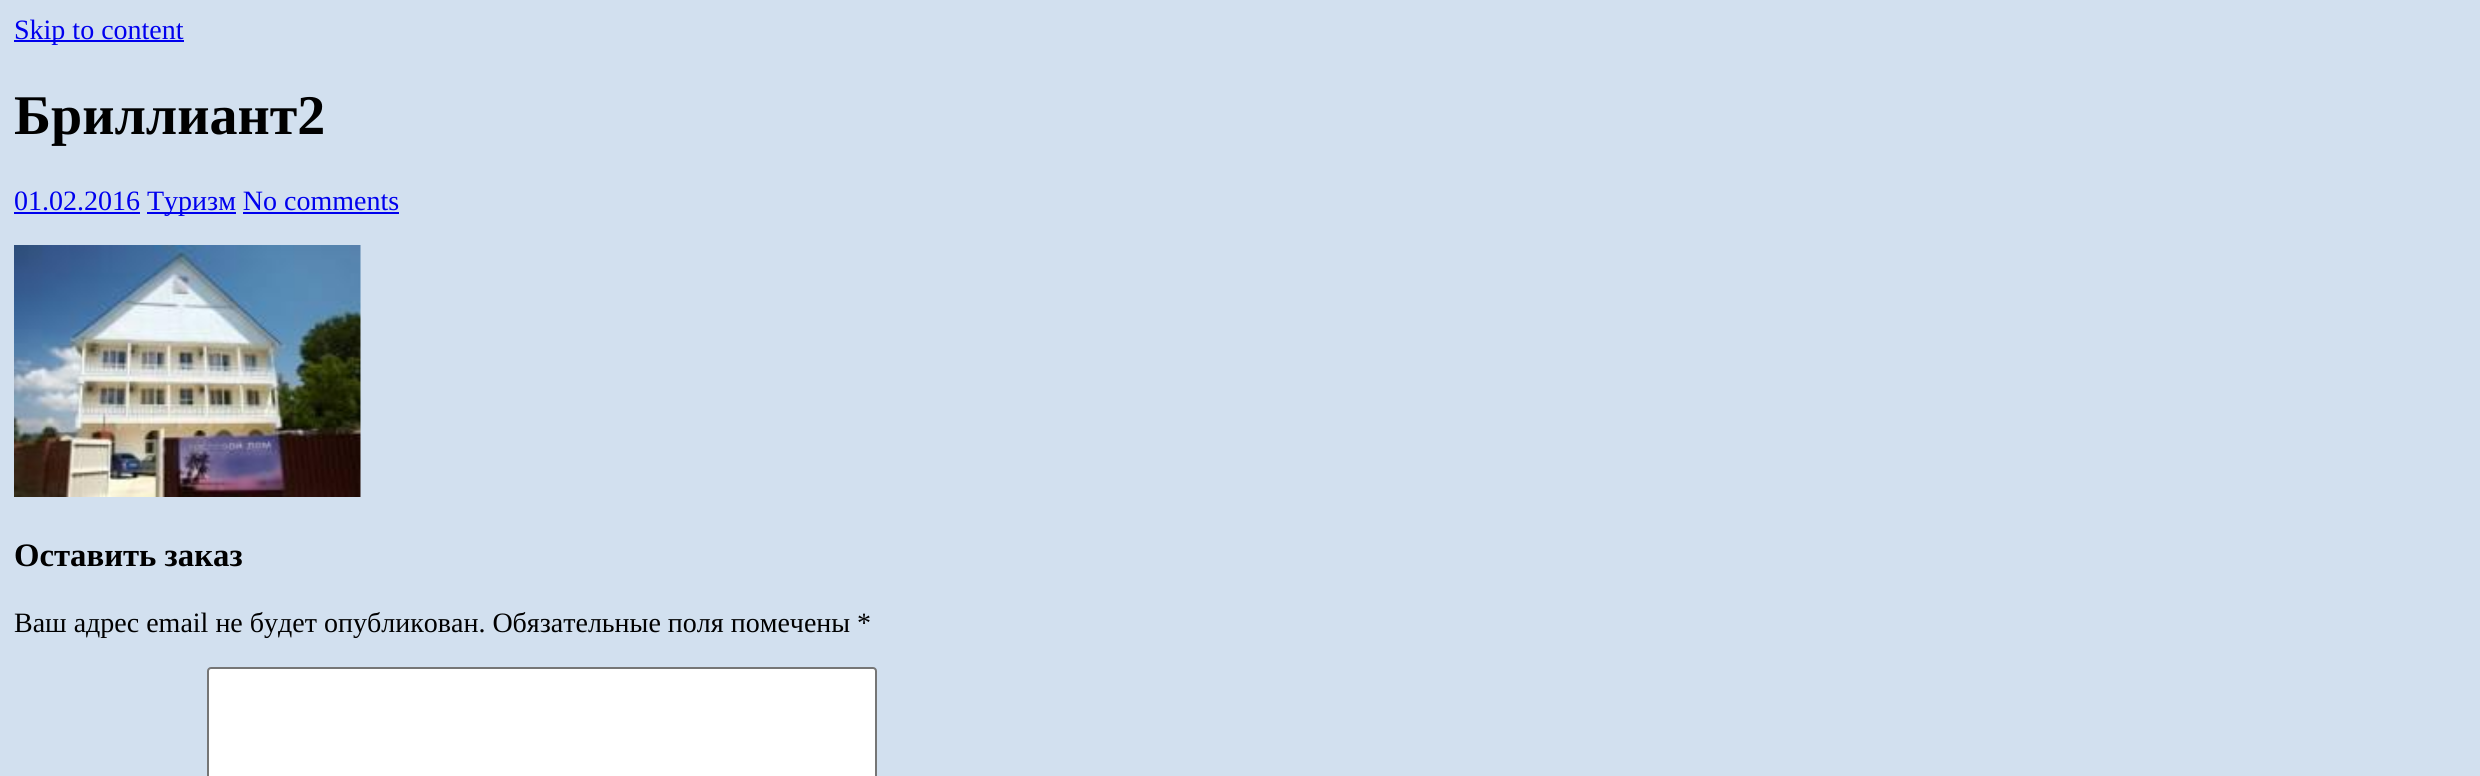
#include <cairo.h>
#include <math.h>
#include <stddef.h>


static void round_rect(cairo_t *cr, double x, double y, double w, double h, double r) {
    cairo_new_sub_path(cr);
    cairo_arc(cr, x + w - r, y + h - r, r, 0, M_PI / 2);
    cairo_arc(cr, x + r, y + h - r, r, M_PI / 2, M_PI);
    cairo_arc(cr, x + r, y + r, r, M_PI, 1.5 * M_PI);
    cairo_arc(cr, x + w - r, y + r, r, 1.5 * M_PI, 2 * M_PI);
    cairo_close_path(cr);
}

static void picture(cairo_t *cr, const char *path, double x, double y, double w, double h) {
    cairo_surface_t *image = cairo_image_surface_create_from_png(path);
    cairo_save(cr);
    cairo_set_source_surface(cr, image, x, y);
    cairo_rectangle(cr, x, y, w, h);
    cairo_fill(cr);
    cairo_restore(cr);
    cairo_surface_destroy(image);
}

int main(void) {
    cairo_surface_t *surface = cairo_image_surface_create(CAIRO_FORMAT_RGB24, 2480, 776);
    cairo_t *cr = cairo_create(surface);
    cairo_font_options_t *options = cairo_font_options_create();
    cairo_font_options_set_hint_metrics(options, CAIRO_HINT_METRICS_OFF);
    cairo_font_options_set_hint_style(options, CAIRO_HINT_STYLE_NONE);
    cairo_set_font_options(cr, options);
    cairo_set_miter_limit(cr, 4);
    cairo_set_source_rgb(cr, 0.824, 0.878, 0.937);
    cairo_paint(cr);
    cairo_set_source_rgb(cr, 0, 0, 0.933);
    cairo_rectangle(cr, 14, 40, 170, 2);
    cairo_fill(cr);
    cairo_select_font_face(cr, "Liberation Serif", CAIRO_FONT_SLANT_NORMAL, CAIRO_FONT_WEIGHT_NORMAL);
    cairo_set_font_size(cr, 28);
    cairo_move_to(cr, 14, 39);
    cairo_show_text(cr, "Skip to content");
    cairo_select_font_face(cr, "Liberation Serif", CAIRO_FONT_SLANT_NORMAL, CAIRO_FONT_WEIGHT_BOLD);
    cairo_set_font_size(cr, 56);
    cairo_set_source_rgb(cr, 0, 0, 0);
    cairo_move_to(cr, 14, 134);
    cairo_show_text(cr, "Бриллиант2");
    cairo_select_font_face(cr, "Liberation Serif", CAIRO_FONT_SLANT_NORMAL, CAIRO_FONT_WEIGHT_NORMAL);
    cairo_set_font_size(cr, 28);
    cairo_set_source_rgb(cr, 0, 0, 0.933);
    cairo_move_to(cr, 14, 210);
    cairo_show_text(cr, "01.02.2016");
    cairo_rectangle(cr, 14, 212, 126, 2);
    cairo_fill(cr);
    cairo_rectangle(cr, 147, 212, 89, 2);
    cairo_fill(cr);
    cairo_move_to(cr, 147, 210);
    cairo_show_text(cr, "Туризм No comments");
    cairo_rectangle(cr, 243, 212, 156, 2);
    cairo_fill(cr);
    picture(cr, "img1.png", 14, 245, 347, 252);
    cairo_select_font_face(cr, "Liberation Serif", CAIRO_FONT_SLANT_NORMAL, CAIRO_FONT_WEIGHT_BOLD);
    cairo_set_font_size(cr, 32.75);
    cairo_set_source_rgb(cr, 0, 0, 0);
    cairo_move_to(cr, 14, 566);
    cairo_show_text(cr, "Оставить заказ");
    cairo_select_font_face(cr, "Liberation Serif", CAIRO_FONT_SLANT_NORMAL, CAIRO_FONT_WEIGHT_NORMAL);
    cairo_set_font_size(cr, 28);
    cairo_move_to(cr, 14, 632);
    cairo_show_text(cr, "Ваш адрес email не будет опубликован. Обязательные поля помечены *");
    cairo_set_source_rgb(cr, 1, 1, 1);
    round_rect(cr, 208, 668, 668, 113, 3);
    cairo_fill_preserve(cr);
    cairo_set_source_rgb(cr, 0.463, 0.463, 0.463);
    cairo_stroke(cr);
    cairo_surface_write_to_png(surface, "page.png");
    cairo_font_options_destroy(options);
    cairo_destroy(cr);
    cairo_surface_destroy(surface);
    return 0;
}
